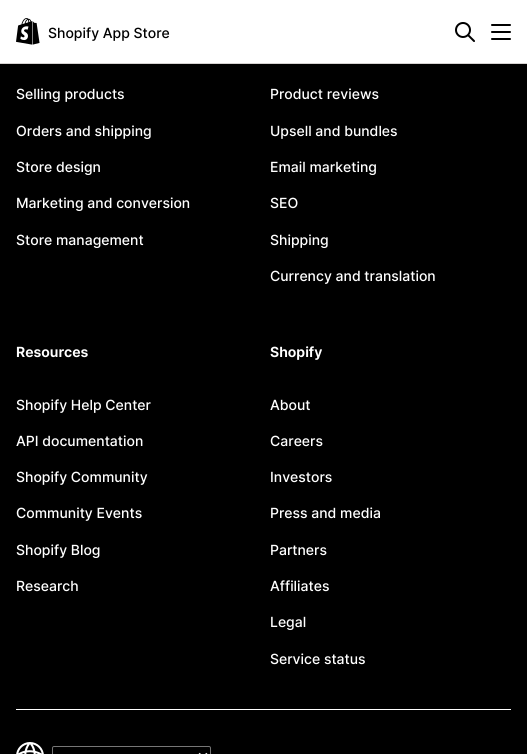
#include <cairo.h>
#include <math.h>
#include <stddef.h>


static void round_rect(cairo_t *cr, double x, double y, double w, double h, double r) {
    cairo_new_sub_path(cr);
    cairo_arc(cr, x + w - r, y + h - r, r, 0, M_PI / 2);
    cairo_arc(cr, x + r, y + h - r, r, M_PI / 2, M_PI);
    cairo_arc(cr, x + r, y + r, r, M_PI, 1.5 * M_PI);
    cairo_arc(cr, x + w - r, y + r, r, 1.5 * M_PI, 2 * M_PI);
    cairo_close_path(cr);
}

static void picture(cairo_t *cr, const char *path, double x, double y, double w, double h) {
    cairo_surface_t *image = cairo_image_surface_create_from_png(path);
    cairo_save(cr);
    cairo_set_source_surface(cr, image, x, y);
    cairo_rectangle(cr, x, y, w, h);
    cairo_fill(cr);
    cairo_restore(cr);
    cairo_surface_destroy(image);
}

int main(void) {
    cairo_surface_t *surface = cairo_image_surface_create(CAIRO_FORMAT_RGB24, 527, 754);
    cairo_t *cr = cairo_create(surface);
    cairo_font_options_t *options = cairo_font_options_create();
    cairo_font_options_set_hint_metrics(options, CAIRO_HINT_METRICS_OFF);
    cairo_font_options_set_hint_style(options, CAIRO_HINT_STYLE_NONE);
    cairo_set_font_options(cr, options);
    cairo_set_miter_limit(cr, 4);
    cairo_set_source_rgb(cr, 0, 0, 0);
    cairo_paint(cr);
    cairo_set_source_rgb(cr, 1, 1, 1);
    cairo_rectangle(cr, 0, 0, 527, 63);
    cairo_fill(cr);
    cairo_set_source_rgb(cr, 0.839, 0.827, 0.82);
    cairo_rectangle(cr, 0, 63, 527, 1);
    cairo_fill(cr);
    picture(cr, "img1.png", 16, 18, 24, 27);
    cairo_select_font_face(cr, "Inter Medium", CAIRO_FONT_SLANT_NORMAL, CAIRO_FONT_WEIGHT_NORMAL);
    cairo_set_font_size(cr, 14);
    cairo_set_source_rgb(cr, 0, 0, 0);
    cairo_move_to(cr, 48, 38);
    cairo_show_text(cr, "Shopify App Store");
    picture(cr, "img2.png", 455, 22, 20, 20);
    picture(cr, "img3.png", 491, 24, 20, 16);
    cairo_set_source_rgb(cr, 1, 1, 1);
    cairo_move_to(cr, 16, 99);
    cairo_show_text(cr, "Selling products");
    cairo_move_to(cr, 16, 136);
    cairo_show_text(cr, "Orders and shipping");
    cairo_move_to(cr, 16, 172);
    cairo_show_text(cr, "Store design");
    cairo_move_to(cr, 16, 208);
    cairo_show_text(cr, "Marketing and conversion");
    cairo_move_to(cr, 16, 245);
    cairo_show_text(cr, "Store management");
    cairo_move_to(cr, 270, 99);
    cairo_show_text(cr, "Product reviews");
    cairo_move_to(cr, 270, 136);
    cairo_show_text(cr, "Upsell and bundles");
    cairo_move_to(cr, 270, 172);
    cairo_show_text(cr, "Email marketing");
    cairo_move_to(cr, 270, 208);
    cairo_show_text(cr, "SEO");
    cairo_move_to(cr, 270, 245);
    cairo_show_text(cr, "Shipping");
    cairo_move_to(cr, 270, 281);
    cairo_show_text(cr, "Currency and translation");
    cairo_select_font_face(cr, "Inter SemiBold", CAIRO_FONT_SLANT_NORMAL, CAIRO_FONT_WEIGHT_NORMAL);
    cairo_move_to(cr, 16, 357);
    cairo_show_text(cr, "Resources");
    cairo_select_font_face(cr, "Inter Medium", CAIRO_FONT_SLANT_NORMAL, CAIRO_FONT_WEIGHT_NORMAL);
    cairo_move_to(cr, 16, 410);
    cairo_show_text(cr, "Shopify Help Center");
    cairo_move_to(cr, 16, 446);
    cairo_show_text(cr, "API documentation");
    cairo_move_to(cr, 16, 482);
    cairo_show_text(cr, "Shopify Community");
    cairo_move_to(cr, 16, 518);
    cairo_show_text(cr, "Community Events");
    cairo_move_to(cr, 16, 555);
    cairo_show_text(cr, "Shopify Blog");
    cairo_move_to(cr, 16, 591);
    cairo_show_text(cr, "Research");
    cairo_select_font_face(cr, "Inter SemiBold", CAIRO_FONT_SLANT_NORMAL, CAIRO_FONT_WEIGHT_NORMAL);
    cairo_move_to(cr, 270, 357);
    cairo_show_text(cr, "Shopify");
    cairo_select_font_face(cr, "Inter Medium", CAIRO_FONT_SLANT_NORMAL, CAIRO_FONT_WEIGHT_NORMAL);
    cairo_move_to(cr, 270, 410);
    cairo_show_text(cr, "About");
    cairo_move_to(cr, 270, 446);
    cairo_show_text(cr, "Careers");
    cairo_move_to(cr, 270, 482);
    cairo_show_text(cr, "Investors");
    cairo_move_to(cr, 270, 518);
    cairo_show_text(cr, "Press and media");
    cairo_move_to(cr, 270, 555);
    cairo_show_text(cr, "Partners");
    cairo_move_to(cr, 270, 591);
    cairo_show_text(cr, "Affiliates");
    cairo_move_to(cr, 270, 627);
    cairo_show_text(cr, "Legal");
    cairo_move_to(cr, 270, 664);
    cairo_show_text(cr, "Service status");
    cairo_rectangle(cr, 16, 709, 495, 1);
    cairo_fill(cr);
    picture(cr, "img4.png", 16, 742, 28, 12);
    round_rect(cr, 52.5, 746.5, 158, 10, 1.5);
    cairo_set_source_rgb(cr, 0.463, 0.463, 0.463);
    cairo_set_line_width(cr, 1);
    cairo_stroke(cr);
    cairo_new_path(cr);
    cairo_move_to(cr, 199, 753.5);
    cairo_line_to(cr, 203, 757.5);
    cairo_line_to(cr, 207, 753.5);
    cairo_set_source_rgb(cr, 1, 1, 1);
    cairo_set_line_width(cr, 2);
    cairo_stroke(cr);
    cairo_surface_write_to_png(surface, "page.png");
    cairo_font_options_destroy(options);
    cairo_destroy(cr);
    cairo_surface_destroy(surface);
    return 0;
}
